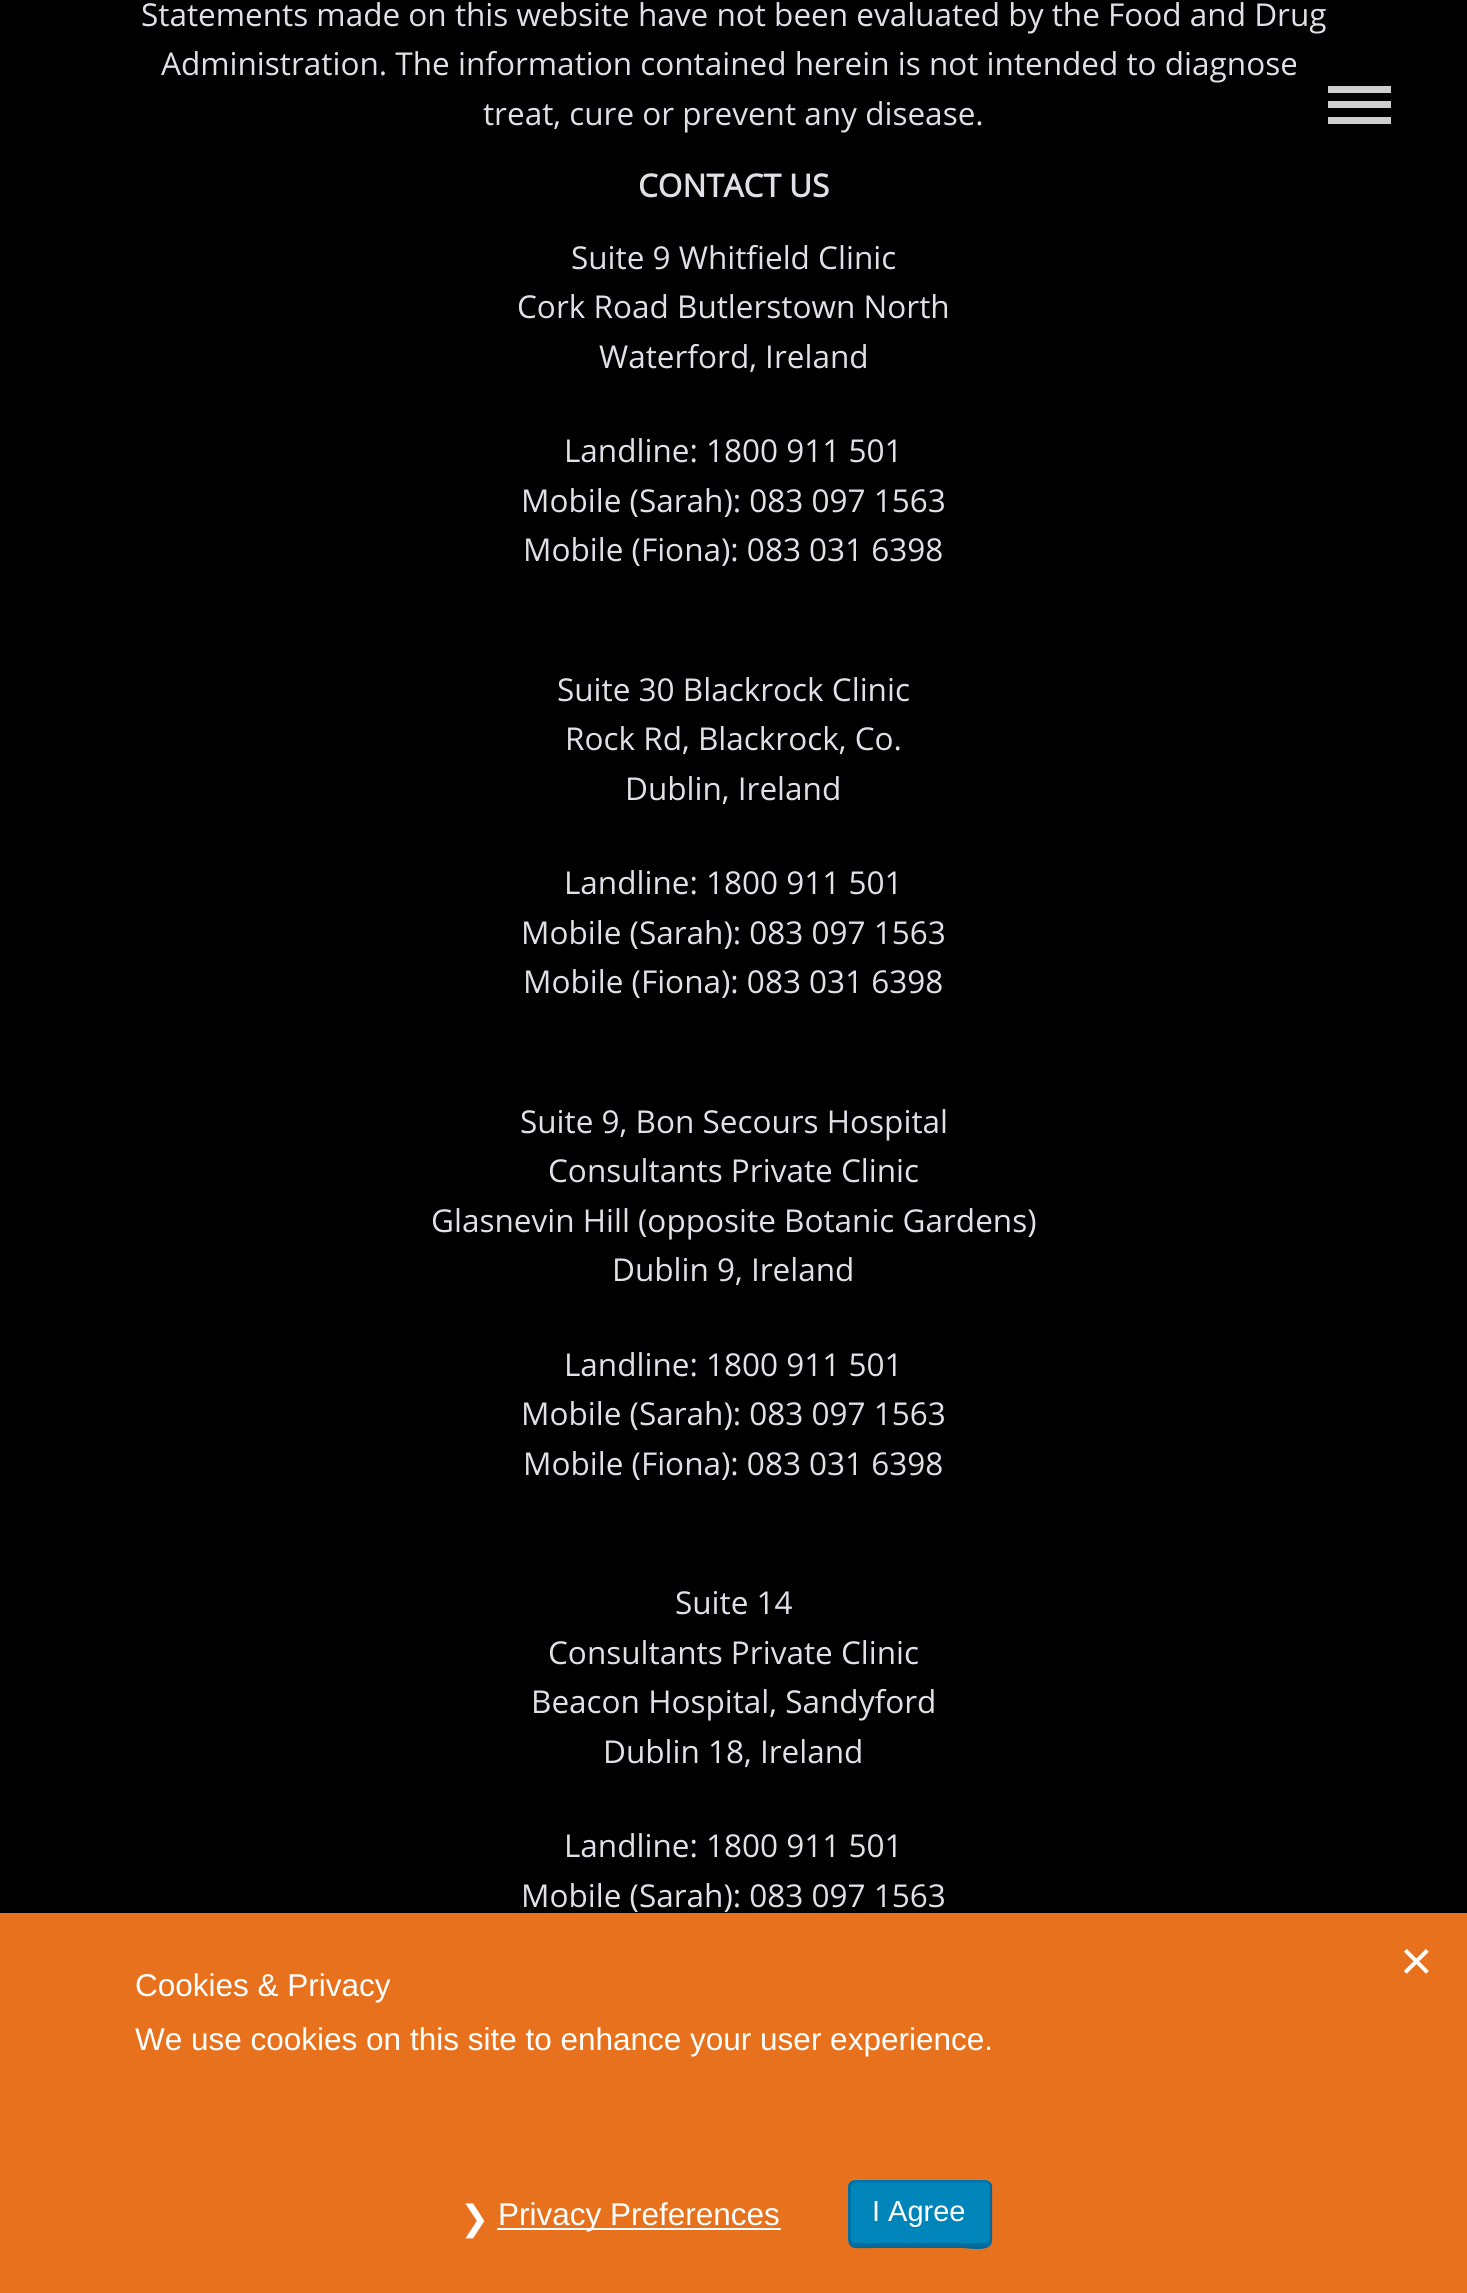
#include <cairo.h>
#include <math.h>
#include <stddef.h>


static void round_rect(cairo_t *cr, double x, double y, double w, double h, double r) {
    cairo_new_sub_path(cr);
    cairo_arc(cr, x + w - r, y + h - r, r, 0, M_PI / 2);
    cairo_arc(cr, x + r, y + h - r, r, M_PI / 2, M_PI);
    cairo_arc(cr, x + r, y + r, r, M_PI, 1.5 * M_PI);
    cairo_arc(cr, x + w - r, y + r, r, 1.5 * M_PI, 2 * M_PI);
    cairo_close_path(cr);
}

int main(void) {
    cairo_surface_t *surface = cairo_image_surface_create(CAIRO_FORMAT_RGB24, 1467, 2293);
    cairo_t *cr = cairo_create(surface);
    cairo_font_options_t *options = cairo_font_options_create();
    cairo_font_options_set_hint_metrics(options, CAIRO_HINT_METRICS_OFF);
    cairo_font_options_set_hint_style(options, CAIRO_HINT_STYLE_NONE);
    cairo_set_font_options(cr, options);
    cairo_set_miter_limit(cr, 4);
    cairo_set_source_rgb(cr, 0, 0, 0);
    cairo_paint(cr);
    cairo_select_font_face(cr, "Open Sans", CAIRO_FONT_SLANT_NORMAL, CAIRO_FONT_WEIGHT_NORMAL);
    cairo_set_font_size(cr, 31.5);
    cairo_set_source_rgb(cr, 0.875, 0.882, 0.906);
    cairo_move_to(cr, 141, 26);
    cairo_show_text(cr, "Statements made on this website have not been evaluated by the Food and Drug");
    cairo_move_to(cr, 161, 75);
    cairo_show_text(cr, "Administration. The information contained herein is not intended to diagnose");
    cairo_move_to(cr, 483, 125);
    cairo_show_text(cr, "treat, cure or prevent any disease.");
    cairo_select_font_face(cr, "Open Sans", CAIRO_FONT_SLANT_NORMAL, CAIRO_FONT_WEIGHT_BOLD);
    cairo_move_to(cr, 638, 197);
    cairo_show_text(cr, "CONTACT US");
    cairo_select_font_face(cr, "Open Sans", CAIRO_FONT_SLANT_NORMAL, CAIRO_FONT_WEIGHT_NORMAL);
    cairo_move_to(cr, 571, 269);
    cairo_show_text(cr, "Suite 9 Whitfield Clinic");
    cairo_move_to(cr, 517, 318);
    cairo_show_text(cr, "Cork Road Butlerstown North");
    cairo_move_to(cr, 599, 368);
    cairo_show_text(cr, "Waterford, Ireland");
    cairo_move_to(cr, 564, 462);
    cairo_show_text(cr, "Landline: 1800 911 501");
    cairo_move_to(cr, 521, 512);
    cairo_show_text(cr, "Mobile (Sarah): 083 097 1563");
    cairo_move_to(cr, 523, 561);
    cairo_show_text(cr, "Mobile (Fiona): 083 031 6398");
    cairo_move_to(cr, 557, 701);
    cairo_show_text(cr, "Suite 30 Blackrock Clinic");
    cairo_move_to(cr, 565, 750);
    cairo_show_text(cr, "Rock Rd, Blackrock, Co.");
    cairo_move_to(cr, 625, 800);
    cairo_show_text(cr, "Dublin, Ireland");
    cairo_move_to(cr, 564, 894);
    cairo_show_text(cr, "Landline: 1800 911 501");
    cairo_move_to(cr, 521, 944);
    cairo_show_text(cr, "Mobile (Sarah): 083 097 1563");
    cairo_move_to(cr, 523, 993);
    cairo_show_text(cr, "Mobile (Fiona): 083 031 6398");
    cairo_move_to(cr, 520, 1133);
    cairo_show_text(cr, "Suite 9, Bon Secours Hospital");
    cairo_move_to(cr, 548, 1182);
    cairo_show_text(cr, "Consultants Private Clinic");
    cairo_move_to(cr, 431, 1232);
    cairo_show_text(cr, "Glasnevin Hill (opposite Botanic Gardens)");
    cairo_move_to(cr, 612, 1281);
    cairo_show_text(cr, "Dublin 9, Ireland");
    cairo_move_to(cr, 564, 1376);
    cairo_show_text(cr, "Landline: 1800 911 501");
    cairo_move_to(cr, 521, 1425);
    cairo_show_text(cr, "Mobile (Sarah): 083 097 1563");
    cairo_move_to(cr, 523, 1475);
    cairo_show_text(cr, "Mobile (Fiona): 083 031 6398");
    cairo_move_to(cr, 675, 1614);
    cairo_show_text(cr, "Suite 14");
    cairo_move_to(cr, 548, 1664);
    cairo_show_text(cr, "Consultants Private Clinic");
    cairo_move_to(cr, 531, 1713);
    cairo_show_text(cr, "Beacon Hospital, Sandyford");
    cairo_move_to(cr, 603, 1763);
    cairo_show_text(cr, "Dublin 18, Ireland");
    cairo_move_to(cr, 564, 1857);
    cairo_show_text(cr, "Landline: 1800 911 501");
    cairo_move_to(cr, 521, 1907);
    cairo_show_text(cr, "Mobile (Sarah): 083 097 1563");
    cairo_set_source_rgb(cr, 0, 0, 0);
    cairo_rectangle(cr, 1296, 62, 1, 5);
    cairo_fill(cr);
    cairo_set_source_rgb(cr, 0.808, 0.808, 0.808);
    cairo_rectangle(cr, 1328, 86, 63, 7);
    cairo_fill(cr);
    cairo_rectangle(cr, 1328, 101, 63, 7);
    cairo_fill(cr);
    cairo_rectangle(cr, 1328, 117, 63, 7);
    cairo_fill(cr);
    cairo_set_source_rgb(cr, 0.906, 0.443, 0.11);
    cairo_rectangle(cr, 0, 1913, 1467, 380);
    cairo_fill(cr);
    cairo_select_font_face(cr, "Liberation Sans", CAIRO_FONT_SLANT_NORMAL, CAIRO_FONT_WEIGHT_NORMAL);
    cairo_set_font_size(cr, 56);
    cairo_set_source_rgb(cr, 1, 1, 1);
    cairo_move_to(cr, 1400, 1980);
    cairo_show_text(cr, "×");
    cairo_select_font_face(cr, "DejaVu Sans", CAIRO_FONT_SLANT_NORMAL, CAIRO_FONT_WEIGHT_NORMAL);
    cairo_set_font_size(cr, 35);
    cairo_move_to(cr, 460, 2230);
    cairo_show_text(cr, "❯");
    cairo_rectangle(cr, 497, 2228, 284, 2);
    cairo_fill(cr);
    cairo_select_font_face(cr, "Liberation Sans", CAIRO_FONT_SLANT_NORMAL, CAIRO_FONT_WEIGHT_NORMAL);
    cairo_set_font_size(cr, 31.5);
    cairo_move_to(cr, 498, 2225);
    cairo_show_text(cr, "Privacy Preferences");
    cairo_set_source_rgb(cr, 0, 0.404, 0.6);
    cairo_new_path(cr);
    cairo_move_to(cr, 848, 2188);
    cairo_line_to(cr, 848, 2224);
    cairo_curve_to(cr, 848, 2252, 846, 2248, 877, 2248);
    cairo_line_to(cr, 963, 2248);
    cairo_curve_to(cr, 967, 2248, 992, 2253, 992, 2241);
    cairo_curve_to(cr, 991, 2243, 989, 2246, 986, 2246);
    cairo_line_to(cr, 855, 2246);
    cairo_curve_to(cr, 851, 2246, 848, 2242, 848, 2239);
    cairo_close_path(cr);
    cairo_fill(cr);
    cairo_set_source_rgb(cr, 0, 0.522, 0.729);
    round_rect(cr, 848, 2180, 144, 66, 7);
    cairo_fill(cr);
    cairo_new_path(cr);
    cairo_move_to(cr, 851, 2183);
    cairo_line_to(cr, 854.5, 2181.5);
    cairo_line_to(cr, 986, 2181.5);
    cairo_line_to(cr, 989.5, 2183);
    cairo_set_source_rgb(cr, 0, 0.451, 0.667);
    cairo_set_line_width(cr, 2.2);
    cairo_stroke(cr);
    cairo_new_path(cr);
    cairo_move_to(cr, 989.5, 2183);
    cairo_curve_to(cr, 990.5, 2184, 991, 2185.5, 991, 2187);
    cairo_line_to(cr, 991, 2239);
    cairo_curve_to(cr, 991, 2240, 990.5, 2241.5, 989.5, 2242.5);
    cairo_curve_to(cr, 988.5, 2244, 987, 2244.5, 985.5, 2244.5);
    cairo_line_to(cr, 855, 2244.5);
    cairo_curve_to(cr, 853.5, 2244.5, 852, 2244, 851, 2242.5);
    cairo_curve_to(cr, 850, 2241.5, 849.5, 2240, 849.5, 2239);
    cairo_line_to(cr, 849.5, 2187);
    cairo_curve_to(cr, 849.5, 2185.5, 850, 2184, 851, 2183);
    cairo_set_source_rgb(cr, 0, 0.404, 0.6);
    cairo_stroke(cr);
    cairo_set_font_size(cr, 29);
    cairo_set_source_rgb(cr, 1, 1, 1);
    cairo_move_to(cr, 872, 2221);
    cairo_show_text(cr, "I Agree");
    cairo_set_font_size(cr, 31.5);
    cairo_move_to(cr, 135, 1996);
    cairo_show_text(cr, "Cookies & Privacy");
    cairo_move_to(cr, 135, 2050);
    cairo_show_text(cr, "We use cookies on this site to enhance your user experience.");
    cairo_surface_write_to_png(surface, "page.png");
    cairo_font_options_destroy(options);
    cairo_destroy(cr);
    cairo_surface_destroy(surface);
    return 0;
}
